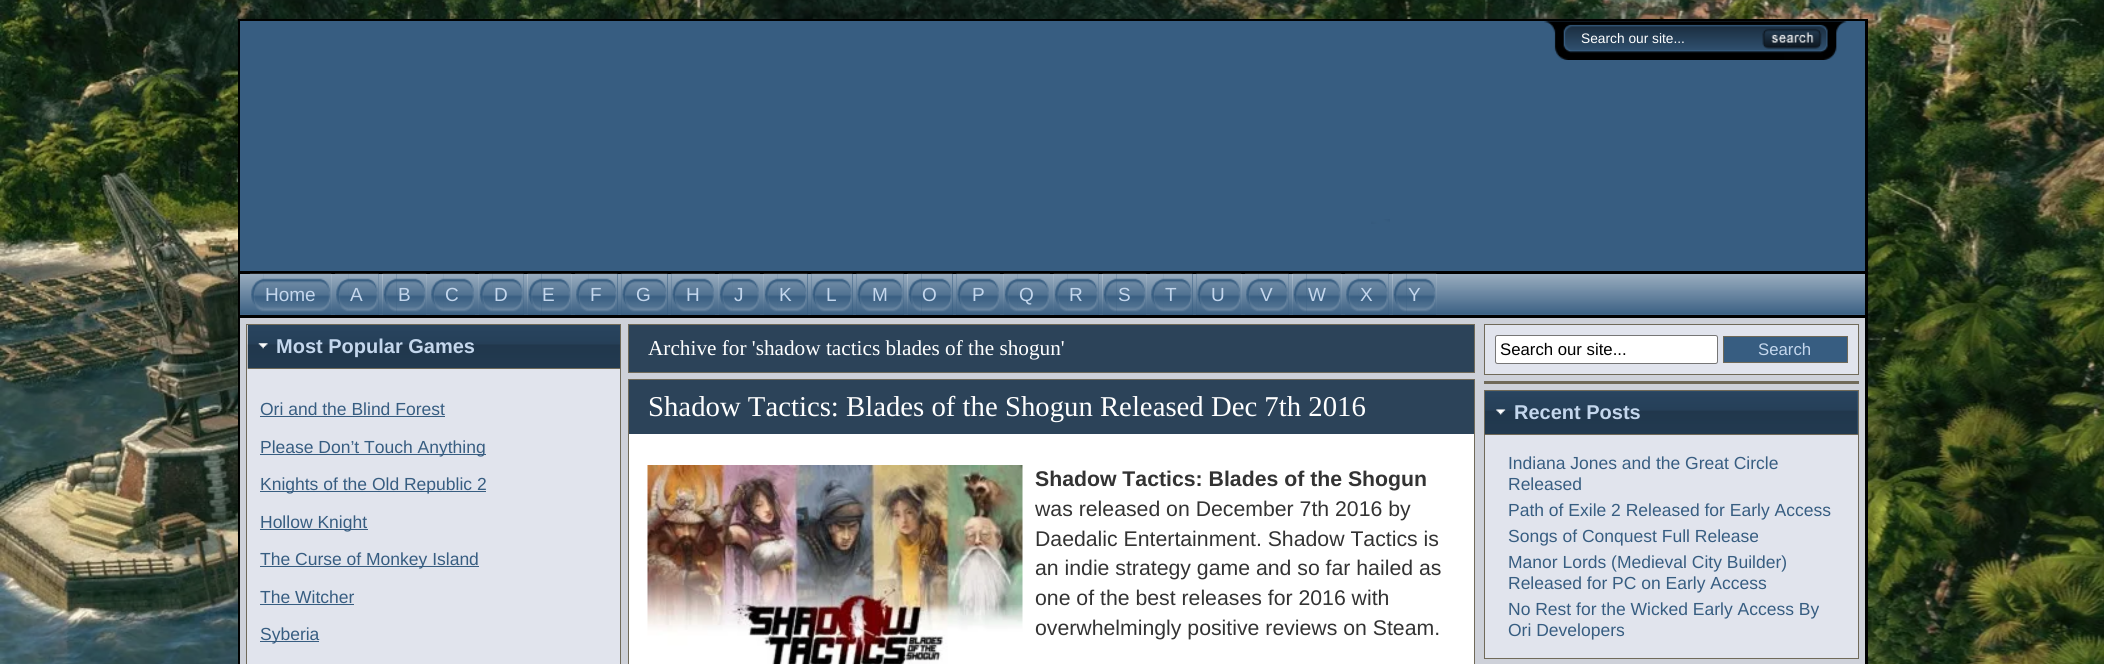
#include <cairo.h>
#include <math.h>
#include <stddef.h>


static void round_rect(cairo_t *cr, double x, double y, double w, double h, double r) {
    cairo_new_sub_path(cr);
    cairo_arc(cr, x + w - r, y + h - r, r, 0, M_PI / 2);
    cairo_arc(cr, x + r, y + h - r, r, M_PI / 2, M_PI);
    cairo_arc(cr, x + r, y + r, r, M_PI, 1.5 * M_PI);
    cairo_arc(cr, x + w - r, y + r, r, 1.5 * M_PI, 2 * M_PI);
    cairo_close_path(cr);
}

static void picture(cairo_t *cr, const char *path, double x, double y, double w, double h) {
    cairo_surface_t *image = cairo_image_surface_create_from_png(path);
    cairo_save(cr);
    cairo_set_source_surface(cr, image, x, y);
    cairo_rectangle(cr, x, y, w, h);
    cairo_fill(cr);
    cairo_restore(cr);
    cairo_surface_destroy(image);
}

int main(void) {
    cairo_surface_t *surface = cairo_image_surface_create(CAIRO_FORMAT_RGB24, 2104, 664);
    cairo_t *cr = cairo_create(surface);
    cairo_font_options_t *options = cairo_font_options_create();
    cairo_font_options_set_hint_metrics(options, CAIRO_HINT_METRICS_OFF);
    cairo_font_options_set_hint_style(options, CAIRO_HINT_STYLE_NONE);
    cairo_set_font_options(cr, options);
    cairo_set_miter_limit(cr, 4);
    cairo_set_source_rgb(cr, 1, 1, 1);
    cairo_paint(cr);
    picture(cr, "img1.png", 0, 0, 2104, 664);
    cairo_rectangle(cr, 239.5, 20.5, 1627, 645);
    cairo_set_source_rgb(cr, 0, 0, 0);
    cairo_set_line_width(cr, 3);
    cairo_stroke(cr);
    cairo_set_source_rgb(cr, 0.216, 0.365, 0.506);
    cairo_rectangle(cr, 240, 21, 1625, 250);
    cairo_fill(cr);
    cairo_set_source_rgb(cr, 0, 0, 0);
    cairo_rectangle(cr, 240, 271, 1625, 3);
    cairo_fill(cr);
    picture(cr, "img2.png", 1544, 21, 303, 39);
    cairo_select_font_face(cr, "Liberation Sans", CAIRO_FONT_SLANT_NORMAL, CAIRO_FONT_WEIGHT_NORMAL);
    cairo_set_font_size(cr, 13.75);
    cairo_set_source_rgb(cr, 1, 1, 1);
    cairo_move_to(cr, 1581, 43);
    cairo_show_text(cr, "Search our site...");
    picture(cr, "img3.png", 1371, 219, 19, 5);
    cairo_set_source_rgb(cr, 0.216, 0.365, 0.506);
    cairo_rectangle(cr, 240, 274, 1625, 41);
    cairo_fill(cr);
    picture(cr, "img4.png", 240, 274, 1625, 41);
    cairo_set_source_rgb(cr, 0, 0, 0);
    cairo_rectangle(cr, 240, 315, 1625, 3);
    cairo_fill(cr);
    cairo_set_source_rgb(cr, 0.216, 0.365, 0.506);
    cairo_rectangle(cr, 250, 274, 81, 41);
    cairo_fill(cr);
    picture(cr, "img5.png", 250, 273, 14, 42);
    picture(cr, "img6.png", 263, 273, 69, 42);
    cairo_set_font_size(cr, 19);
    cairo_set_source_rgb(cr, 0.769, 0.843, 0.929);
    cairo_move_to(cr, 265, 301);
    cairo_show_text(cr, "Home");
    cairo_set_source_rgb(cr, 0.216, 0.365, 0.506);
    cairo_rectangle(cr, 335, 274, 44, 41);
    cairo_fill(cr);
    picture(cr, "img5.png", 335, 273, 14, 42);
    picture(cr, "img7.png", 348, 273, 31, 42);
    cairo_set_source_rgb(cr, 0.769, 0.843, 0.929);
    cairo_move_to(cr, 350, 301);
    cairo_show_text(cr, "A");
    cairo_set_source_rgb(cr, 0.216, 0.365, 0.506);
    cairo_rectangle(cr, 383, 274, 13, 41);
    cairo_fill(cr);
    picture(cr, "img8.png", 382, 273, 15, 42);
    cairo_rectangle(cr, 396, 274, 30, 41);
    cairo_fill(cr);
    picture(cr, "img9.png", 396, 273, 31, 42);
    cairo_set_source_rgb(cr, 0.769, 0.843, 0.929);
    cairo_move_to(cr, 398, 301);
    cairo_show_text(cr, "B");
    cairo_set_source_rgb(cr, 0.216, 0.365, 0.506);
    cairo_rectangle(cr, 430, 274, 45, 41);
    cairo_fill(cr);
    picture(cr, "img10.png", 430, 273, 14, 42);
    picture(cr, "img11.png", 443, 273, 32, 42);
    cairo_set_source_rgb(cr, 0.769, 0.843, 0.929);
    cairo_move_to(cr, 445, 301);
    cairo_show_text(cr, "C");
    cairo_set_source_rgb(cr, 0.216, 0.365, 0.506);
    cairo_rectangle(cr, 479, 274, 45, 41);
    cairo_fill(cr);
    picture(cr, "img12.png", 478, 273, 15, 42);
    picture(cr, "img13.png", 492, 273, 32, 42);
    cairo_set_source_rgb(cr, 0.769, 0.843, 0.929);
    cairo_move_to(cr, 494, 301);
    cairo_show_text(cr, "D");
    cairo_set_source_rgb(cr, 0.216, 0.365, 0.506);
    cairo_rectangle(cr, 528, 274, 13, 41);
    cairo_fill(cr);
    picture(cr, "img8.png", 527, 273, 15, 42);
    cairo_rectangle(cr, 541, 274, 30, 41);
    cairo_fill(cr);
    picture(cr, "img9.png", 541, 273, 31, 42);
    cairo_set_source_rgb(cr, 0.769, 0.843, 0.929);
    cairo_move_to(cr, 542, 301);
    cairo_show_text(cr, "E");
    cairo_set_source_rgb(cr, 0.216, 0.365, 0.506);
    cairo_rectangle(cr, 575, 274, 43, 41);
    cairo_fill(cr);
    picture(cr, "img10.png", 575, 273, 14, 42);
    picture(cr, "img14.png", 588, 273, 30, 42);
    cairo_set_source_rgb(cr, 0.769, 0.843, 0.929);
    cairo_move_to(cr, 590, 301);
    cairo_show_text(cr, "F");
    cairo_set_source_rgb(cr, 0.216, 0.365, 0.506);
    cairo_rectangle(cr, 621, 274, 47, 41);
    cairo_fill(cr);
    picture(cr, "img15.png", 621, 273, 14, 42);
    picture(cr, "img16.png", 635, 273, 33, 42);
    cairo_set_source_rgb(cr, 0.769, 0.843, 0.929);
    cairo_move_to(cr, 636, 301);
    cairo_show_text(cr, "G");
    cairo_set_source_rgb(cr, 0.216, 0.365, 0.506);
    cairo_rectangle(cr, 671, 274, 44, 41);
    cairo_fill(cr);
    picture(cr, "img15.png", 671, 273, 14, 42);
    picture(cr, "img17.png", 685, 273, 30, 42);
    cairo_set_source_rgb(cr, 0.769, 0.843, 0.929);
    cairo_move_to(cr, 686, 301);
    cairo_show_text(cr, "H");
    cairo_set_source_rgb(cr, 0.216, 0.365, 0.506);
    cairo_rectangle(cr, 719, 274, 41, 41);
    cairo_fill(cr);
    picture(cr, "img18.png", 718, 273, 15, 42);
    picture(cr, "img19.png", 732, 273, 28, 42);
    cairo_set_source_rgb(cr, 0.769, 0.843, 0.929);
    cairo_move_to(cr, 734, 301);
    cairo_show_text(cr, "J");
    cairo_set_source_rgb(cr, 0.216, 0.365, 0.506);
    cairo_rectangle(cr, 764, 274, 44, 41);
    cairo_fill(cr);
    picture(cr, "img12.png", 763, 273, 15, 42);
    picture(cr, "img20.png", 777, 273, 31, 42);
    cairo_set_source_rgb(cr, 0.769, 0.843, 0.929);
    cairo_move_to(cr, 779, 301);
    cairo_show_text(cr, "K");
    cairo_set_source_rgb(cr, 0.216, 0.365, 0.506);
    cairo_rectangle(cr, 811, 274, 42, 41);
    cairo_fill(cr);
    picture(cr, "img15.png", 811, 273, 14, 42);
    picture(cr, "img21.png", 825, 273, 28, 42);
    cairo_set_source_rgb(cr, 0.769, 0.843, 0.929);
    cairo_move_to(cr, 826, 301);
    cairo_show_text(cr, "L");
    cairo_set_source_rgb(cr, 0.216, 0.365, 0.506);
    cairo_rectangle(cr, 856, 274, 48, 41);
    cairo_fill(cr);
    picture(cr, "img15.png", 856, 273, 14, 42);
    picture(cr, "img22.png", 870, 273, 34, 42);
    cairo_set_source_rgb(cr, 0.769, 0.843, 0.929);
    cairo_move_to(cr, 872, 301);
    cairo_show_text(cr, "M");
    cairo_set_source_rgb(cr, 0.216, 0.365, 0.506);
    cairo_rectangle(cr, 908, 274, 13, 41);
    cairo_fill(cr);
    picture(cr, "img23.png", 907, 273, 15, 42);
    cairo_rectangle(cr, 921, 274, 32, 41);
    cairo_fill(cr);
    picture(cr, "img24.png", 921, 273, 32, 42);
    cairo_set_source_rgb(cr, 0.769, 0.843, 0.929);
    cairo_move_to(cr, 922, 301);
    cairo_show_text(cr, "O");
    cairo_set_source_rgb(cr, 0.216, 0.365, 0.506);
    cairo_rectangle(cr, 956, 274, 44, 41);
    cairo_fill(cr);
    picture(cr, "img15.png", 956, 273, 14, 42);
    picture(cr, "img25.png", 970, 273, 30, 42);
    cairo_set_source_rgb(cr, 0.769, 0.843, 0.929);
    cairo_move_to(cr, 972, 301);
    cairo_show_text(cr, "P");
    cairo_set_source_rgb(cr, 0.216, 0.365, 0.506);
    cairo_rectangle(cr, 1004, 274, 46, 41);
    cairo_fill(cr);
    picture(cr, "img18.png", 1003, 273, 15, 42);
    picture(cr, "img26.png", 1017, 273, 33, 42);
    cairo_set_source_rgb(cr, 0.769, 0.843, 0.929);
    cairo_move_to(cr, 1019, 301);
    cairo_show_text(cr, "Q");
    cairo_set_source_rgb(cr, 0.216, 0.365, 0.506);
    cairo_rectangle(cr, 1054, 274, 45, 41);
    cairo_fill(cr);
    picture(cr, "img12.png", 1053, 273, 15, 42);
    picture(cr, "img13.png", 1067, 273, 32, 42);
    cairo_set_source_rgb(cr, 0.769, 0.843, 0.929);
    cairo_move_to(cr, 1069, 301);
    cairo_show_text(cr, "R");
    cairo_set_source_rgb(cr, 0.216, 0.365, 0.506);
    cairo_rectangle(cr, 1103, 274, 13, 41);
    cairo_fill(cr);
    picture(cr, "img8.png", 1102, 273, 15, 42);
    cairo_rectangle(cr, 1116, 274, 30, 41);
    cairo_fill(cr);
    picture(cr, "img9.png", 1116, 273, 31, 42);
    cairo_set_source_rgb(cr, 0.769, 0.843, 0.929);
    cairo_move_to(cr, 1118, 301);
    cairo_show_text(cr, "S");
    cairo_set_source_rgb(cr, 0.216, 0.365, 0.506);
    cairo_rectangle(cr, 1150, 274, 43, 41);
    cairo_fill(cr);
    picture(cr, "img10.png", 1150, 273, 14, 42);
    picture(cr, "img14.png", 1163, 273, 30, 42);
    cairo_set_source_rgb(cr, 0.769, 0.843, 0.929);
    cairo_move_to(cr, 1165, 301);
    cairo_show_text(cr, "T");
    cairo_set_source_rgb(cr, 0.216, 0.365, 0.506);
    cairo_rectangle(cr, 1196, 274, 45, 41);
    cairo_fill(cr);
    picture(cr, "img15.png", 1196, 273, 14, 42);
    picture(cr, "img27.png", 1210, 273, 32, 42);
    cairo_set_source_rgb(cr, 0.769, 0.843, 0.929);
    cairo_move_to(cr, 1211, 301);
    cairo_show_text(cr, "U");
    cairo_set_source_rgb(cr, 0.216, 0.365, 0.506);
    cairo_rectangle(cr, 1245, 274, 44, 41);
    cairo_fill(cr);
    picture(cr, "img5.png", 1245, 273, 14, 42);
    picture(cr, "img7.png", 1258, 273, 31, 42);
    cairo_set_source_rgb(cr, 0.769, 0.843, 0.929);
    cairo_move_to(cr, 1260, 301);
    cairo_show_text(cr, "V");
    cairo_set_source_rgb(cr, 0.216, 0.365, 0.506);
    cairo_rectangle(cr, 1293, 274, 13, 41);
    cairo_fill(cr);
    picture(cr, "img23.png", 1292, 273, 15, 42);
    cairo_rectangle(cr, 1306, 274, 35, 41);
    cairo_fill(cr);
    picture(cr, "img28.png", 1306, 273, 36, 42);
    cairo_set_source_rgb(cr, 0.769, 0.843, 0.929);
    cairo_move_to(cr, 1308, 301);
    cairo_show_text(cr, "W");
    cairo_set_source_rgb(cr, 0.216, 0.365, 0.506);
    cairo_rectangle(cr, 1345, 274, 44, 41);
    cairo_fill(cr);
    picture(cr, "img5.png", 1345, 273, 14, 42);
    picture(cr, "img7.png", 1358, 273, 31, 42);
    cairo_set_source_rgb(cr, 0.769, 0.843, 0.929);
    cairo_move_to(cr, 1360, 301);
    cairo_show_text(cr, "X");
    cairo_set_source_rgb(cr, 0.216, 0.365, 0.506);
    cairo_rectangle(cr, 1393, 274, 13, 41);
    cairo_fill(cr);
    picture(cr, "img23.png", 1392, 273, 15, 42);
    cairo_rectangle(cr, 1406, 274, 30, 41);
    cairo_fill(cr);
    picture(cr, "img9.png", 1406, 273, 31, 42);
    cairo_set_source_rgb(cr, 0.769, 0.843, 0.929);
    cairo_move_to(cr, 1408, 301);
    cairo_show_text(cr, "Y");
    cairo_set_source_rgb(cr, 0.808, 0.82, 0.851);
    cairo_rectangle(cr, 240, 318, 1625, 346);
    cairo_fill(cr);
    cairo_set_source_rgb(cr, 0.882, 0.894, 0.929);
    cairo_rectangle(cr, 246.5, 324.5, 374, 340);
    cairo_fill_preserve(cr);
    cairo_set_source_rgb(cr, 0.439, 0.416, 0.349);
    cairo_set_line_width(cr, 1);
    cairo_stroke(cr);
    cairo_set_source_rgb(cr, 0.216, 0.365, 0.506);
    cairo_rectangle(cr, 248, 325, 372, 43);
    cairo_fill(cr);
    picture(cr, "img29.png", 247, 325, 373, 44);
    cairo_set_source_rgb(cr, 0.439, 0.416, 0.349);
    cairo_rectangle(cr, 248, 368, 372, 1);
    cairo_fill(cr);
    cairo_select_font_face(cr, "Liberation Sans", CAIRO_FONT_SLANT_NORMAL, CAIRO_FONT_WEIGHT_BOLD);
    cairo_set_font_size(cr, 20);
    cairo_set_source_rgb(cr, 0.769, 0.843, 0.929);
    cairo_move_to(cr, 276, 353);
    cairo_show_text(cr, "Most Popular Games");
    cairo_select_font_face(cr, "Liberation Sans", CAIRO_FONT_SLANT_NORMAL, CAIRO_FONT_WEIGHT_NORMAL);
    cairo_set_font_size(cr, 17.5);
    cairo_set_source_rgb(cr, 0.216, 0.365, 0.506);
    cairo_move_to(cr, 260, 415);
    cairo_show_text(cr, "Ori and the Blind Forest");
    cairo_rectangle(cr, 260, 416, 185, 1);
    cairo_fill(cr);
    cairo_rectangle(cr, 260, 454, 226, 1);
    cairo_fill(cr);
    cairo_move_to(cr, 260, 453);
    cairo_show_text(cr, "Please Don’t Touch Anything");
    cairo_rectangle(cr, 260, 491, 226, 1);
    cairo_fill(cr);
    cairo_move_to(cr, 260, 490);
    cairo_show_text(cr, "Knights of the Old Republic 2");
    cairo_rectangle(cr, 260, 529, 108, 1);
    cairo_fill(cr);
    cairo_move_to(cr, 260, 528);
    cairo_show_text(cr, "Hollow Knight");
    cairo_rectangle(cr, 260, 566, 219, 1);
    cairo_fill(cr);
    cairo_move_to(cr, 260, 565);
    cairo_show_text(cr, "The Curse of Monkey Island");
    cairo_move_to(cr, 260, 603);
    cairo_show_text(cr, "The Witcher");
    cairo_rectangle(cr, 260, 604, 94, 1);
    cairo_fill(cr);
    cairo_rectangle(cr, 260, 641, 59, 1);
    cairo_fill(cr);
    cairo_move_to(cr, 260, 640);
    cairo_show_text(cr, "Syberia");
    cairo_set_source_rgb(cr, 0.173, 0.263, 0.349);
    cairo_rectangle(cr, 628.5, 324.5, 846, 48);
    cairo_fill_preserve(cr);
    cairo_set_source_rgb(cr, 0.439, 0.416, 0.349);
    cairo_stroke(cr);
    cairo_select_font_face(cr, "Liberation Serif", CAIRO_FONT_SLANT_NORMAL, CAIRO_FONT_WEIGHT_NORMAL);
    cairo_set_font_size(cr, 21.25);
    cairo_set_source_rgb(cr, 1, 1, 1);
    cairo_move_to(cr, 648, 355);
    cairo_show_text(cr, "Archive for 'shadow tactics blades of the shogun'");
    cairo_rectangle(cr, 629, 434, 845, 230);
    cairo_fill(cr);
    cairo_rectangle(cr, 628.5, 379.5, 846, 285);
    cairo_set_source_rgb(cr, 0.439, 0.416, 0.349);
    cairo_stroke(cr);
    cairo_set_source_rgb(cr, 0.173, 0.263, 0.349);
    cairo_rectangle(cr, 629, 380, 845, 54);
    cairo_fill(cr);
    cairo_set_font_size(cr, 28.75);
    cairo_set_source_rgb(cr, 1, 1, 1);
    cairo_move_to(cr, 648, 416);
    cairo_show_text(cr, "Shadow Tactics: Blades of the Shogun Released Dec 7th 2016");
    picture(cr, "img30.png", 647, 465, 376, 199);
    cairo_select_font_face(cr, "Liberation Sans", CAIRO_FONT_SLANT_NORMAL, CAIRO_FONT_WEIGHT_BOLD);
    cairo_set_font_size(cr, 21.25);
    cairo_set_source_rgb(cr, 0.2, 0.2, 0.2);
    cairo_move_to(cr, 1035, 486);
    cairo_show_text(cr, "Shadow Tactics: Blades of the Shogun");
    cairo_select_font_face(cr, "Liberation Sans", CAIRO_FONT_SLANT_NORMAL, CAIRO_FONT_WEIGHT_NORMAL);
    cairo_move_to(cr, 1035, 516);
    cairo_show_text(cr, "was released on December 7th 2016 by");
    cairo_move_to(cr, 1035, 546);
    cairo_show_text(cr, "Daedalic Entertainment. Shadow Tactics is");
    cairo_move_to(cr, 1035, 575);
    cairo_show_text(cr, "an indie strategy game and so far hailed as");
    cairo_move_to(cr, 1035, 605);
    cairo_show_text(cr, "one of the best releases for 2016 with");
    cairo_move_to(cr, 1035, 635);
    cairo_show_text(cr, "overwhelmingly positive reviews on Steam.");
    cairo_set_source_rgb(cr, 0.882, 0.894, 0.929);
    cairo_rectangle(cr, 1484.5, 324.5, 374, 50);
    cairo_fill_preserve(cr);
    cairo_set_source_rgb(cr, 0.439, 0.416, 0.349);
    cairo_stroke(cr);
    cairo_set_source_rgb(cr, 1, 1, 1);
    round_rect(cr, 1495.5, 335.5, 222, 28, 2);
    cairo_fill_preserve(cr);
    cairo_set_source_rgb(cr, 0.463, 0.463, 0.463);
    cairo_stroke(cr);
    cairo_set_font_size(cr, 16.75);
    cairo_set_source_rgb(cr, 0, 0, 0);
    cairo_move_to(cr, 1500, 355);
    cairo_show_text(cr, "Search our site...");
    cairo_set_source_rgb(cr, 0.216, 0.365, 0.506);
    cairo_rectangle(cr, 1723.5, 336.5, 124, 26);
    cairo_fill_preserve(cr);
    cairo_set_source_rgb(cr, 0.439, 0.416, 0.349);
    cairo_stroke(cr);
    cairo_set_source_rgb(cr, 0.769, 0.843, 0.929);
    cairo_move_to(cr, 1758, 355);
    cairo_show_text(cr, "Search");
    cairo_set_source_rgb(cr, 0.439, 0.416, 0.349);
    cairo_rectangle(cr, 1484, 381, 375, 3);
    cairo_fill(cr);
    cairo_set_source_rgb(cr, 0.882, 0.894, 0.929);
    cairo_rectangle(cr, 1485, 435, 373, 223);
    cairo_fill(cr);
    cairo_rectangle(cr, 1484.5, 390.5, 374, 268);
    cairo_set_source_rgb(cr, 0.439, 0.416, 0.349);
    cairo_stroke(cr);
    cairo_set_source_rgb(cr, 0.216, 0.365, 0.506);
    cairo_rectangle(cr, 1485, 391, 373, 43);
    cairo_fill(cr);
    picture(cr, "img31.png", 1485, 391, 373, 43);
    cairo_set_source_rgb(cr, 0.439, 0.416, 0.349);
    cairo_rectangle(cr, 1485, 434, 373, 1);
    cairo_fill(cr);
    cairo_select_font_face(cr, "Liberation Sans", CAIRO_FONT_SLANT_NORMAL, CAIRO_FONT_WEIGHT_BOLD);
    cairo_set_font_size(cr, 20);
    cairo_set_source_rgb(cr, 0.769, 0.843, 0.929);
    cairo_move_to(cr, 1514, 419);
    cairo_show_text(cr, "Recent Posts");
    cairo_select_font_face(cr, "Liberation Sans", CAIRO_FONT_SLANT_NORMAL, CAIRO_FONT_WEIGHT_NORMAL);
    cairo_set_font_size(cr, 17.5);
    cairo_set_source_rgb(cr, 0.216, 0.365, 0.506);
    cairo_move_to(cr, 1508, 469);
    cairo_show_text(cr, "Indiana Jones and the Great Circle");
    cairo_move_to(cr, 1508, 490);
    cairo_show_text(cr, "Released");
    cairo_move_to(cr, 1508, 516);
    cairo_show_text(cr, "Path of Exile 2 Released for Early Access");
    cairo_move_to(cr, 1508, 542);
    cairo_show_text(cr, "Songs of Conquest Full Release");
    cairo_move_to(cr, 1508, 568);
    cairo_show_text(cr, "Manor Lords (Medieval City Builder)");
    cairo_move_to(cr, 1508, 589);
    cairo_show_text(cr, "Released for PC on Early Access");
    cairo_move_to(cr, 1508, 615);
    cairo_show_text(cr, "No Rest for the Wicked Early Access By");
    cairo_move_to(cr, 1508, 636);
    cairo_show_text(cr, "Ori Developers");
    cairo_surface_write_to_png(surface, "page.png");
    cairo_font_options_destroy(options);
    cairo_destroy(cr);
    cairo_surface_destroy(surface);
    return 0;
}
